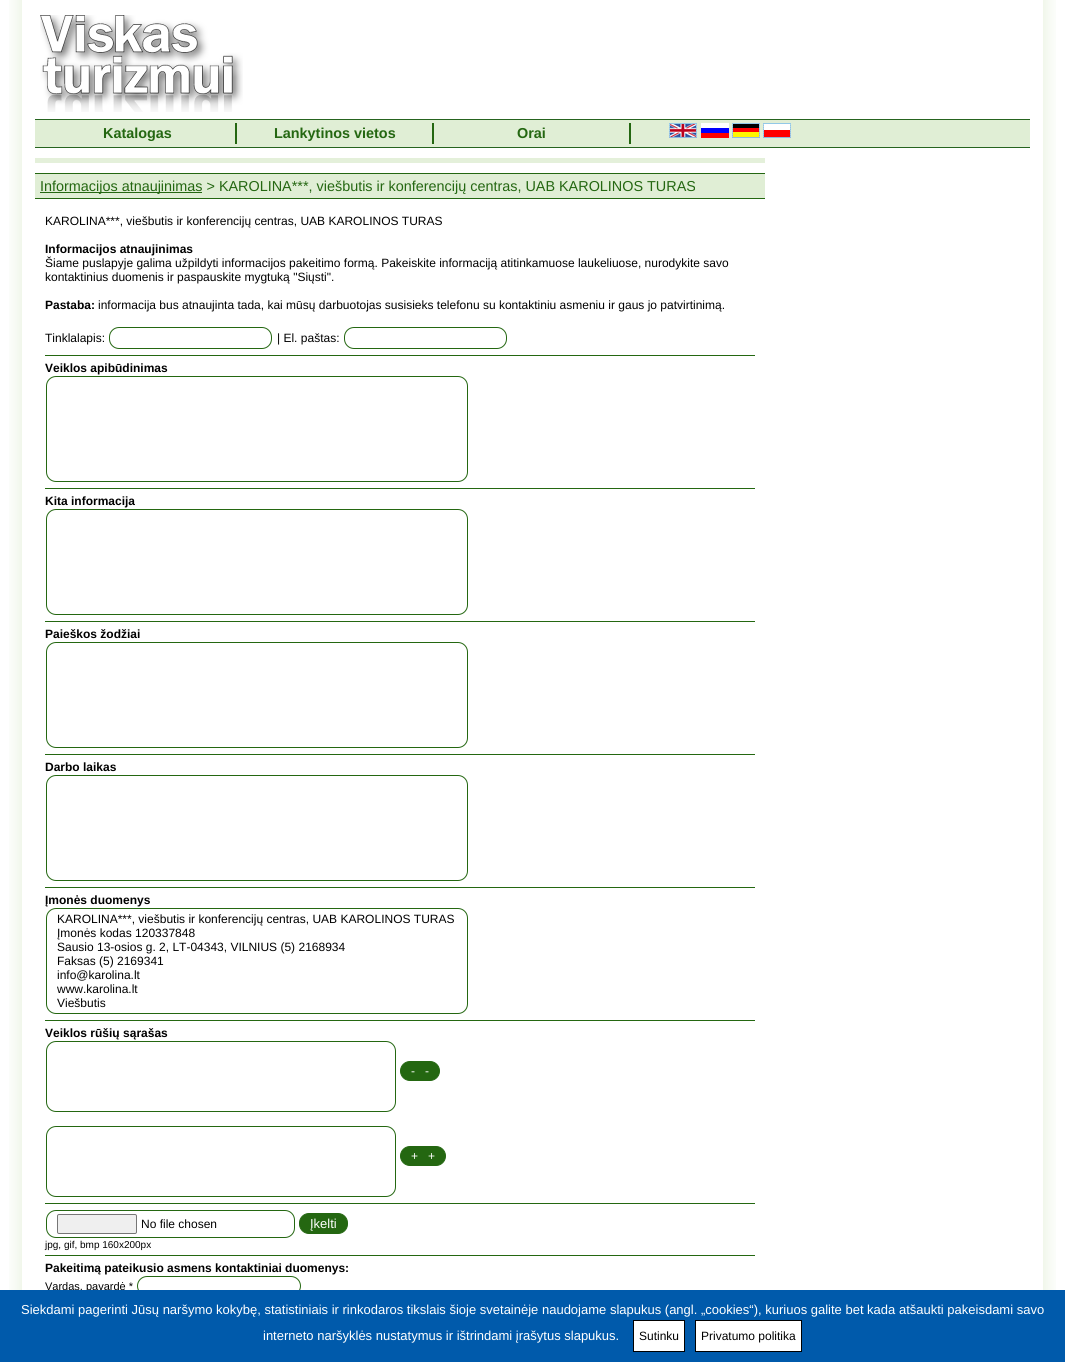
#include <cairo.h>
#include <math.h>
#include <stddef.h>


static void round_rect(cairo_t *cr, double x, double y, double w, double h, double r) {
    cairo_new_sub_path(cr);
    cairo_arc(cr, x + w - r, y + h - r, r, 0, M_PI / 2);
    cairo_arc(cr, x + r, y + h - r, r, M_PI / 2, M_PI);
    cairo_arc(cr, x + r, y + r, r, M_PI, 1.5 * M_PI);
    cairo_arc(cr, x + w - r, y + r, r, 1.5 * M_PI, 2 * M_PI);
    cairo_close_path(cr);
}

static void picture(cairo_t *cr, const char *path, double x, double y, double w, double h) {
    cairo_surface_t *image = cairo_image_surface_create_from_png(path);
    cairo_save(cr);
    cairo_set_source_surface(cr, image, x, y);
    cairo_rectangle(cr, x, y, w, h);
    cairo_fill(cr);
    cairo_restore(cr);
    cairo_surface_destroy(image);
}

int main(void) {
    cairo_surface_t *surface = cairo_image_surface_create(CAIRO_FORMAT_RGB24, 1065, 1362);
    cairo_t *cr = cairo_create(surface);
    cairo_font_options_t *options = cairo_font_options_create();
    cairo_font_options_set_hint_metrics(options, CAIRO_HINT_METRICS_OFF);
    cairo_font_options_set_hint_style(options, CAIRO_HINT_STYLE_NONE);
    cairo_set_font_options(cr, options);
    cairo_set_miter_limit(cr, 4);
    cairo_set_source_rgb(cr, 1, 1, 1);
    cairo_paint(cr);
    picture(cr, "img1.png", 9, 0, 1047, 1290);
    picture(cr, "img2.png", 40, 15, 203, 97);
    cairo_set_source_rgb(cr, 0.878, 0.933, 0.835);
    cairo_rectangle(cr, 35, 120, 995, 27);
    cairo_fill(cr);
    cairo_set_source_rgb(cr, 0.149, 0.392, 0.122);
    cairo_rectangle(cr, 35, 119, 995, 1);
    cairo_fill(cr);
    cairo_rectangle(cr, 35, 147, 995, 1);
    cairo_fill(cr);
    cairo_select_font_face(cr, "Liberation Sans", CAIRO_FONT_SLANT_NORMAL, CAIRO_FONT_WEIGHT_BOLD);
    cairo_set_font_size(cr, 14.4);
    cairo_set_source_rgb(cr, 0.141, 0.404, 0.067);
    cairo_move_to(cr, 103, 138);
    cairo_show_text(cr, "Katalogas");
    cairo_rectangle(cr, 235, 123, 2, 21);
    cairo_fill(cr);
    cairo_move_to(cr, 274, 138);
    cairo_show_text(cr, "Lankytinos vietos");
    cairo_rectangle(cr, 432, 123, 2, 21);
    cairo_fill(cr);
    cairo_move_to(cr, 517, 138);
    cairo_show_text(cr, "Orai");
    cairo_rectangle(cr, 629, 123, 2, 21);
    cairo_fill(cr);
    picture(cr, "img3.png", 669, 123, 28, 15);
    picture(cr, "img4.png", 701, 123, 28, 15);
    picture(cr, "img5.png", 732, 123, 28, 15);
    picture(cr, "img6.png", 763, 123, 28, 15);
    cairo_set_source_rgb(cr, 0.894, 0.941, 0.855);
    cairo_rectangle(cr, 35, 158, 730, 5);
    cairo_fill(cr);
    cairo_set_source_rgb(cr, 0.878, 0.933, 0.835);
    cairo_rectangle(cr, 35, 174, 730, 24);
    cairo_fill(cr);
    cairo_set_source_rgb(cr, 0.141, 0.404, 0.067);
    cairo_rectangle(cr, 35, 173, 730, 1);
    cairo_fill(cr);
    cairo_rectangle(cr, 35, 198, 730, 1);
    cairo_fill(cr);
    cairo_rectangle(cr, 40, 192, 162, 1);
    cairo_fill(cr);
    cairo_select_font_face(cr, "Liberation Sans", CAIRO_FONT_SLANT_NORMAL, CAIRO_FONT_WEIGHT_NORMAL);
    cairo_move_to(cr, 40, 191);
    cairo_show_text(cr, "Informacijos atnaujinimas > KAROLINA***, viešbutis ir konferencijų centras, UAB KAROLINOS TURAS");
    cairo_set_font_size(cr, 12);
    cairo_set_source_rgb(cr, 0, 0, 0);
    cairo_move_to(cr, 45, 225);
    cairo_show_text(cr, "KAROLINA***, viešbutis ir konferencijų centras, UAB KAROLINOS TURAS");
    cairo_select_font_face(cr, "Liberation Sans", CAIRO_FONT_SLANT_NORMAL, CAIRO_FONT_WEIGHT_BOLD);
    cairo_move_to(cr, 45, 253);
    cairo_show_text(cr, "Informacijos atnaujinimas");
    cairo_select_font_face(cr, "Liberation Sans", CAIRO_FONT_SLANT_NORMAL, CAIRO_FONT_WEIGHT_NORMAL);
    cairo_move_to(cr, 45, 267);
    cairo_show_text(cr, "Šiame puslapyje galima užpildyti informacijos pakeitimo formą. Pakeiskite informaciją atitinkamuose laukeliuose, nurodykite savo");
    cairo_move_to(cr, 45, 281);
    cairo_show_text(cr, "kontaktinius duomenis ir paspauskite mygtuką \"Siųsti\".");
    cairo_select_font_face(cr, "Liberation Sans", CAIRO_FONT_SLANT_NORMAL, CAIRO_FONT_WEIGHT_BOLD);
    cairo_move_to(cr, 45, 309);
    cairo_show_text(cr, "Pastaba:");
    cairo_select_font_face(cr, "Liberation Sans", CAIRO_FONT_SLANT_NORMAL, CAIRO_FONT_WEIGHT_NORMAL);
    cairo_move_to(cr, 98, 309);
    cairo_show_text(cr, "informacija bus atnaujinta tada, kai mūsų darbuotojas susisieks telefonu su kontaktiniu asmeniu ir gaus jo patvirtinimą.");
    cairo_move_to(cr, 45, 342);
    cairo_show_text(cr, "Tinklalapis:");
    round_rect(cr, 109.5, 327.5, 162, 21, 9.5);
    cairo_set_source_rgb(cr, 0.141, 0.404, 0.067);
    cairo_set_line_width(cr, 1);
    cairo_stroke(cr);
    cairo_set_source_rgb(cr, 0, 0, 0);
    cairo_move_to(cr, 277, 342);
    cairo_show_text(cr, "| El. paštas:");
    round_rect(cr, 344.5, 327.5, 162, 21, 9.5);
    cairo_set_source_rgb(cr, 0.141, 0.404, 0.067);
    cairo_stroke(cr);
    cairo_rectangle(cr, 45, 355, 710, 1);
    cairo_fill(cr);
    cairo_select_font_face(cr, "Liberation Sans", CAIRO_FONT_SLANT_NORMAL, CAIRO_FONT_WEIGHT_BOLD);
    cairo_set_source_rgb(cr, 0, 0, 0);
    cairo_move_to(cr, 45, 372);
    cairo_show_text(cr, "Veiklos apibūdinimas");
    round_rect(cr, 46.5, 376.5, 421, 105, 9.5);
    cairo_set_source_rgb(cr, 0.141, 0.404, 0.067);
    cairo_stroke(cr);
    cairo_rectangle(cr, 45, 488, 710, 1);
    cairo_fill(cr);
    cairo_set_source_rgb(cr, 0, 0, 0);
    cairo_move_to(cr, 45, 505);
    cairo_show_text(cr, "Kita informacija");
    round_rect(cr, 46.5, 509.5, 421, 105, 9.5);
    cairo_set_source_rgb(cr, 0.141, 0.404, 0.067);
    cairo_stroke(cr);
    cairo_rectangle(cr, 45, 621, 710, 1);
    cairo_fill(cr);
    cairo_set_source_rgb(cr, 0, 0, 0);
    cairo_move_to(cr, 45, 638);
    cairo_show_text(cr, "Paieškos žodžiai");
    round_rect(cr, 46.5, 642.5, 421, 105, 9.5);
    cairo_set_source_rgb(cr, 0.141, 0.404, 0.067);
    cairo_stroke(cr);
    cairo_rectangle(cr, 45, 754, 710, 1);
    cairo_fill(cr);
    cairo_set_source_rgb(cr, 0, 0, 0);
    cairo_move_to(cr, 45, 771);
    cairo_show_text(cr, "Darbo laikas");
    round_rect(cr, 46.5, 775.5, 421, 105, 9.5);
    cairo_set_source_rgb(cr, 0.141, 0.404, 0.067);
    cairo_stroke(cr);
    cairo_rectangle(cr, 45, 887, 710, 1);
    cairo_fill(cr);
    cairo_set_source_rgb(cr, 0, 0, 0);
    cairo_move_to(cr, 45, 904);
    cairo_show_text(cr, "Įmonės duomenys");
    round_rect(cr, 46.5, 908.5, 421, 105, 9.5);
    cairo_set_source_rgb(cr, 0.141, 0.404, 0.067);
    cairo_stroke(cr);
    cairo_select_font_face(cr, "Liberation Sans", CAIRO_FONT_SLANT_NORMAL, CAIRO_FONT_WEIGHT_NORMAL);
    cairo_set_source_rgb(cr, 0, 0, 0);
    cairo_move_to(cr, 57, 923);
    cairo_show_text(cr, "KAROLINA***, viešbutis ir konferencijų centras, UAB KAROLINOS TURAS");
    cairo_move_to(cr, 57, 937);
    cairo_show_text(cr, "Įmonės kodas 120337848");
    cairo_move_to(cr, 57, 951);
    cairo_show_text(cr, "Sausio 13-osios g. 2, LT-04343, VILNIUS (5) 2168934");
    cairo_move_to(cr, 57, 965);
    cairo_show_text(cr, "Faksas (5) 2169341");
    cairo_move_to(cr, 57, 979);
    cairo_show_text(cr, "info@karolina.lt");
    cairo_move_to(cr, 57, 993);
    cairo_show_text(cr, "www.karolina.lt");
    cairo_move_to(cr, 57, 1007);
    cairo_show_text(cr, "Viešbutis");
    cairo_set_source_rgb(cr, 0.141, 0.404, 0.067);
    cairo_rectangle(cr, 45, 1020, 710, 1);
    cairo_fill(cr);
    cairo_select_font_face(cr, "Liberation Sans", CAIRO_FONT_SLANT_NORMAL, CAIRO_FONT_WEIGHT_BOLD);
    cairo_set_source_rgb(cr, 0, 0, 0);
    cairo_move_to(cr, 45, 1037);
    cairo_show_text(cr, "Veiklos rūšių sąrašas");
    round_rect(cr, 46.5, 1041.5, 349, 70, 9.5);
    cairo_set_source_rgb(cr, 0.141, 0.404, 0.067);
    cairo_stroke(cr);
    round_rect(cr, 400.5, 1061.5, 39, 19, 9.5);
    cairo_fill_preserve(cr);
    cairo_stroke(cr);
    cairo_select_font_face(cr, "Liberation Sans", CAIRO_FONT_SLANT_NORMAL, CAIRO_FONT_WEIGHT_NORMAL);
    cairo_set_source_rgb(cr, 1, 1, 1);
    cairo_move_to(cr, 411, 1075);
    cairo_show_text(cr, "-   -");
    round_rect(cr, 46.5, 1126.5, 349, 70, 9.5);
    cairo_set_source_rgb(cr, 0.141, 0.404, 0.067);
    cairo_stroke(cr);
    round_rect(cr, 400.5, 1146.5, 45, 19, 9.5);
    cairo_fill_preserve(cr);
    cairo_stroke(cr);
    cairo_set_source_rgb(cr, 1, 1, 1);
    cairo_move_to(cr, 411, 1160);
    cairo_show_text(cr, "+   +");
    cairo_set_source_rgb(cr, 0.141, 0.404, 0.067);
    cairo_rectangle(cr, 45, 1203, 710, 1);
    cairo_fill(cr);
    round_rect(cr, 46.5, 1210.5, 248, 27, 9.5);
    cairo_stroke(cr);
    cairo_set_source_rgb(cr, 0.937, 0.937, 0.937);
    round_rect(cr, 57.5, 1214.5, 79, 19, 1.5);
    cairo_fill_preserve(cr);
    cairo_set_source_rgb(cr, 0.463, 0.463, 0.463);
    cairo_stroke(cr);
    cairo_set_source_rgb(cr, 0, 0, 0);
    cairo_move_to(cr, 141, 1228);
    cairo_show_text(cr, "No file chosen");
    cairo_set_source_rgb(cr, 0.141, 0.404, 0.067);
    round_rect(cr, 299.5, 1213.5, 48, 20, 9.5);
    cairo_fill_preserve(cr);
    cairo_stroke(cr);
    cairo_set_font_size(cr, 13);
    cairo_set_source_rgb(cr, 1, 1, 1);
    cairo_move_to(cr, 310, 1228);
    cairo_show_text(cr, "Įkelti");
    cairo_set_font_size(cr, 10);
    cairo_set_source_rgb(cr, 0, 0, 0);
    cairo_move_to(cr, 45, 1248);
    cairo_show_text(cr, "jpg, gif, bmp 160x200px");
    cairo_set_source_rgb(cr, 0.141, 0.404, 0.067);
    cairo_rectangle(cr, 45, 1255, 710, 1);
    cairo_fill(cr);
    cairo_select_font_face(cr, "Liberation Sans", CAIRO_FONT_SLANT_NORMAL, CAIRO_FONT_WEIGHT_BOLD);
    cairo_set_font_size(cr, 12);
    cairo_set_source_rgb(cr, 0, 0, 0);
    cairo_move_to(cr, 45, 1272);
    cairo_show_text(cr, "Pakeitimą pateikusio asmens kontaktiniai duomenys:");
    cairo_select_font_face(cr, "Liberation Sans", CAIRO_FONT_SLANT_NORMAL, CAIRO_FONT_WEIGHT_NORMAL);
    cairo_set_font_size(cr, 11);
    cairo_move_to(cr, 45, 1290);
    cairo_show_text(cr, "Vardas, pavardė *");
    round_rect(cr, 137.5, 1276.5, 163, 19, 9.5);
    cairo_set_source_rgb(cr, 0.141, 0.404, 0.067);
    cairo_stroke(cr);
    cairo_set_source_rgb(cr, 0, 0.353, 0.671);
    cairo_rectangle(cr, 0, 1290, 1065, 72);
    cairo_fill(cr);
    cairo_set_font_size(cr, 13);
    cairo_set_source_rgb(cr, 1, 1, 1);
    cairo_move_to(cr, 21, 1314);
    cairo_show_text(cr, "Siekdami pagerinti Jūsų naršymo kokybę, statistiniais ir rinkodaros tikslais šioje svetainėje naudojame slapukus (angl. „cookies“), kuriuos galite bet kada atšaukti pakeisdami savo");
    cairo_move_to(cr, 263, 1340);
    cairo_show_text(cr, "interneto naršyklės nustatymus ir ištrindami įrašytus slapukus.");
    cairo_rectangle(cr, 633.5, 1320.5, 51, 31);
    cairo_fill_preserve(cr);
    cairo_set_source_rgb(cr, 0, 0, 0);
    cairo_stroke(cr);
    cairo_set_font_size(cr, 12);
    cairo_move_to(cr, 639, 1340);
    cairo_show_text(cr, "Sutinku");
    cairo_set_source_rgb(cr, 1, 1, 1);
    cairo_rectangle(cr, 695.5, 1320.5, 106, 31);
    cairo_fill_preserve(cr);
    cairo_set_source_rgb(cr, 0, 0, 0);
    cairo_stroke(cr);
    cairo_move_to(cr, 701, 1340);
    cairo_show_text(cr, "Privatumo politika");
    cairo_surface_write_to_png(surface, "page.png");
    cairo_font_options_destroy(options);
    cairo_destroy(cr);
    cairo_surface_destroy(surface);
    return 0;
}
